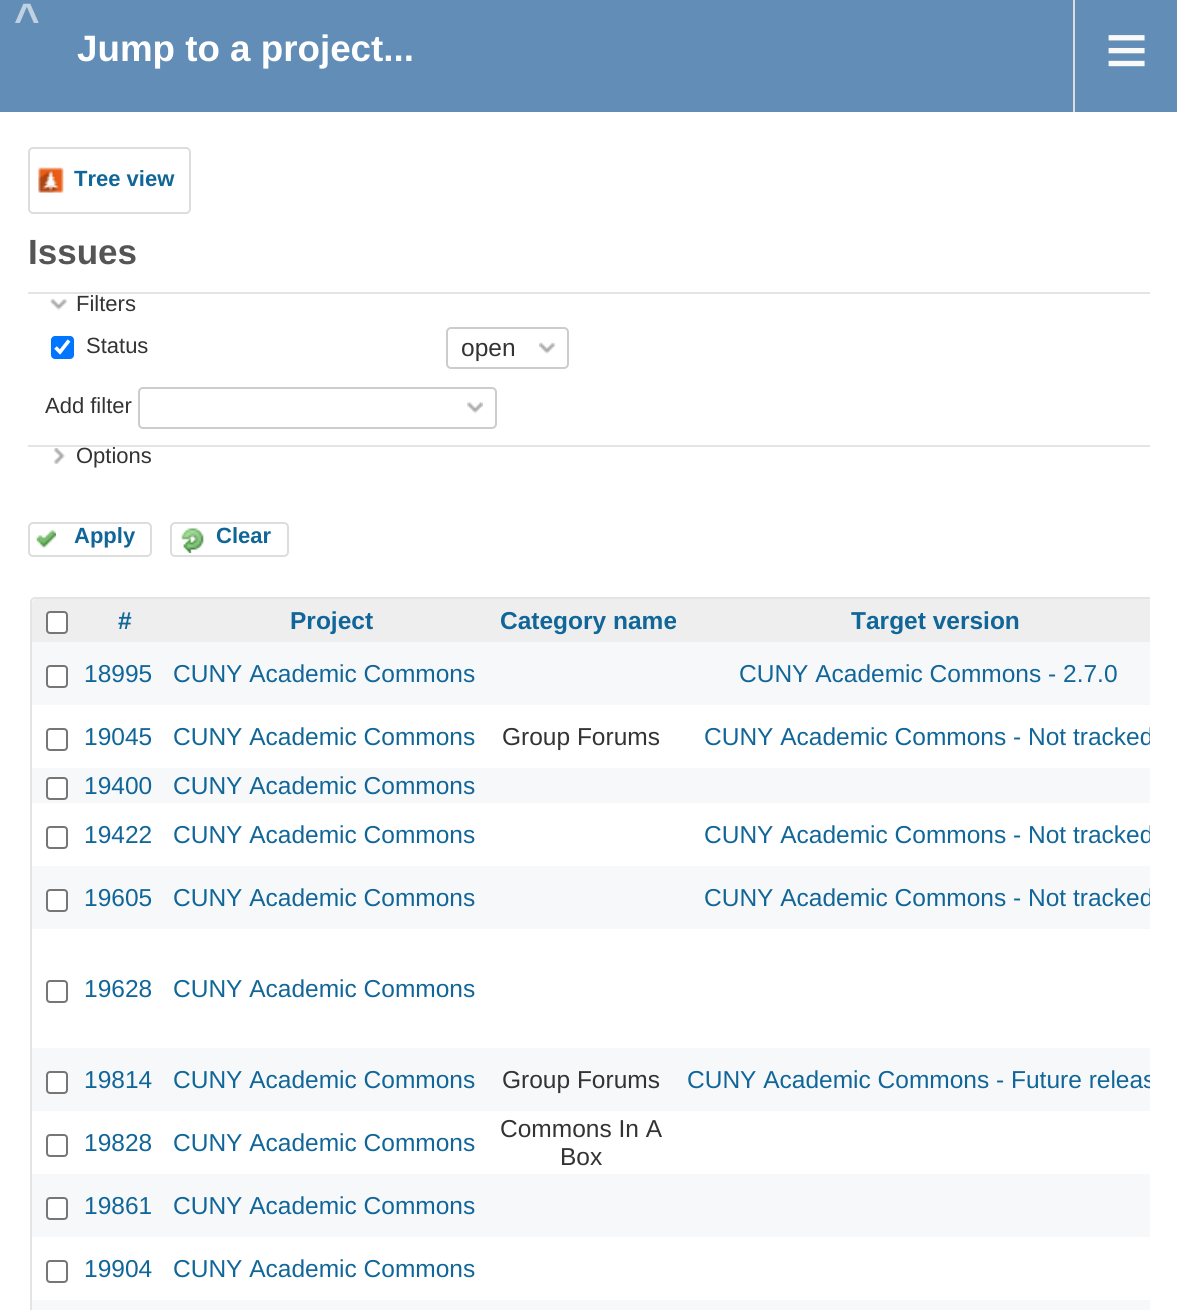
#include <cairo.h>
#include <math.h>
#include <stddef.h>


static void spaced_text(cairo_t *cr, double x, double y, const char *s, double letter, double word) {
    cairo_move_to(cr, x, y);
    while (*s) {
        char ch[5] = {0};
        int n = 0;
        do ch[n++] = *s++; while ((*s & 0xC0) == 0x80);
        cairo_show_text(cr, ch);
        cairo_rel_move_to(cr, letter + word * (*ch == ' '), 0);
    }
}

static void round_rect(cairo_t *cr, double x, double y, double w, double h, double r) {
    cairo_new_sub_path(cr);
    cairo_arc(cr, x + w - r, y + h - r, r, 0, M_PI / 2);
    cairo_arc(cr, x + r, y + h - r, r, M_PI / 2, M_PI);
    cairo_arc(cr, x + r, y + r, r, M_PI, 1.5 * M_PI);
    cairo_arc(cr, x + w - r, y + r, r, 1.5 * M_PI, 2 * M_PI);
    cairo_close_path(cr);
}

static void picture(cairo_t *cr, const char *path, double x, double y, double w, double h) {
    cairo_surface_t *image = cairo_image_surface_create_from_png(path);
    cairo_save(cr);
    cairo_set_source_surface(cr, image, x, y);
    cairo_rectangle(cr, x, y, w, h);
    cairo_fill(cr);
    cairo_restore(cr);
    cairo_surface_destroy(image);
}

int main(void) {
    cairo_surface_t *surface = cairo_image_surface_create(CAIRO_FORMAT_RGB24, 1177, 1310);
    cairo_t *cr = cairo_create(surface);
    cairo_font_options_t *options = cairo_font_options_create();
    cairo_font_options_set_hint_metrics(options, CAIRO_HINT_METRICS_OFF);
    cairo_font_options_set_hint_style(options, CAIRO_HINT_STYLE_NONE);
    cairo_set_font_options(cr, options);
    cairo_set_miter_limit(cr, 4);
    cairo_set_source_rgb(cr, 1, 1, 1);
    cairo_paint(cr);
    cairo_set_source_rgb(cr, 0.384, 0.553, 0.714);
    cairo_rectangle(cr, 0, 0, 1177, 112);
    cairo_fill(cr);
    cairo_select_font_face(cr, "Liberation Sans", CAIRO_FONT_SLANT_NORMAL, CAIRO_FONT_WEIGHT_BOLD);
    cairo_set_font_size(cr, 44);
    cairo_set_source_rgb(cr, 0.753, 0.82, 0.886);
    spaced_text(cr, 14, 34, "^", 6, 0);
    cairo_set_font_size(cr, 36.75);
    cairo_set_source_rgb(cr, 1, 1, 1);
    cairo_move_to(cr, 77, 61);
    cairo_show_text(cr, "Jump to a project...");
    cairo_set_source_rgb(cr, 0.867, 0.867, 0.867);
    cairo_rectangle(cr, 1073, 0, 2, 112);
    cairo_fill(cr);
    cairo_select_font_face(cr, "Liberation Sans", CAIRO_FONT_SLANT_NORMAL, CAIRO_FONT_WEIGHT_NORMAL);
    cairo_set_font_size(cr, 74);
    cairo_set_source_rgb(cr, 0.973, 0.973, 0.973);
    cairo_move_to(cr, 1105, 75);
    cairo_show_text(cr, "≡");
    picture(cr, "img1.png", 38, 167, 26, 26);
    round_rect(cr, 29, 148, 161, 65, 4);
    cairo_set_source_rgb(cr, 0.867, 0.867, 0.867);
    cairo_stroke(cr);
    cairo_select_font_face(cr, "Liberation Sans", CAIRO_FONT_SLANT_NORMAL, CAIRO_FONT_WEIGHT_BOLD);
    cairo_set_font_size(cr, 22);
    cairo_set_source_rgb(cr, 0.067, 0.4, 0.6);
    cairo_move_to(cr, 74, 186);
    cairo_show_text(cr, "Tree view");
    cairo_set_font_size(cr, 35);
    cairo_set_source_rgb(cr, 0.333, 0.333, 0.333);
    cairo_move_to(cr, 28, 264);
    cairo_show_text(cr, "Issues");
    cairo_set_source_rgb(cr, 0.894, 0.894, 0.894);
    cairo_rectangle(cr, 28, 292, 1122, 2);
    cairo_fill(cr);
    picture(cr, "img2.png", 50, 299, 17, 12);
    cairo_select_font_face(cr, "Liberation Sans", CAIRO_FONT_SLANT_NORMAL, CAIRO_FONT_WEIGHT_NORMAL);
    cairo_set_font_size(cr, 22);
    cairo_set_source_rgb(cr, 0.2, 0.2, 0.2);
    cairo_move_to(cr, 76, 311);
    cairo_show_text(cr, "Filters");
    cairo_set_source_rgb(cr, 0, 0.459, 1);
    round_rect(cr, 51, 336, 23, 23, 4);
    cairo_fill(cr);
    cairo_new_path(cr);
    cairo_move_to(cr, 55.5, 347.5);
    cairo_line_to(cr, 60, 352);
    cairo_line_to(cr, 69, 340.5);
    cairo_set_source_rgb(cr, 1, 1, 1);
    cairo_set_line_width(cr, 3.6);
    cairo_stroke(cr);
    cairo_set_source_rgb(cr, 0.2, 0.2, 0.2);
    cairo_move_to(cr, 86, 353);
    cairo_show_text(cr, "Status");
    picture(cr, "img3.png", 539, 342, 16, 12);
    round_rect(cr, 447, 328, 121, 40, 4);
    cairo_set_source_rgb(cr, 0.8, 0.8, 0.8);
    cairo_set_line_width(cr, 2);
    cairo_stroke(cr);
    cairo_set_font_size(cr, 24.5);
    cairo_set_source_rgb(cr, 0.2, 0.2, 0.2);
    cairo_move_to(cr, 461, 356);
    cairo_show_text(cr, "open");
    cairo_set_font_size(cr, 22);
    cairo_move_to(cr, 45, 413);
    cairo_show_text(cr, "Add filter");
    picture(cr, "img4.png", 467, 402, 16, 12);
    round_rect(cr, 139, 388, 357, 40, 4);
    cairo_set_source_rgb(cr, 0.8, 0.8, 0.8);
    cairo_stroke(cr);
    cairo_set_source_rgb(cr, 0.894, 0.894, 0.894);
    cairo_rectangle(cr, 28, 445, 1122, 2);
    cairo_fill(cr);
    picture(cr, "img5.png", 54, 448, 12, 16);
    cairo_set_source_rgb(cr, 0.2, 0.2, 0.2);
    cairo_move_to(cr, 76, 463);
    cairo_show_text(cr, "Options");
    picture(cr, "img6.png", 36, 529, 20, 19);
    round_rect(cr, 29, 523, 122, 33, 4);
    cairo_set_source_rgb(cr, 0.867, 0.867, 0.867);
    cairo_stroke(cr);
    cairo_select_font_face(cr, "Liberation Sans", CAIRO_FONT_SLANT_NORMAL, CAIRO_FONT_WEIGHT_BOLD);
    cairo_set_source_rgb(cr, 0.067, 0.4, 0.6);
    cairo_move_to(cr, 74, 543);
    cairo_show_text(cr, "Apply");
    picture(cr, "img7.png", 181, 528, 23, 25);
    round_rect(cr, 171, 523, 117, 33, 4);
    cairo_set_source_rgb(cr, 0.867, 0.867, 0.867);
    cairo_stroke(cr);
    cairo_set_source_rgb(cr, 0.067, 0.4, 0.6);
    cairo_move_to(cr, 216, 543);
    cairo_show_text(cr, "Clear");
    cairo_save(cr);
    cairo_rectangle(cr, 28, 595, 1122, 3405);
    cairo_clip(cr);
    round_rect(cr, 31, 598, 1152, 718, 4);
    cairo_set_source_rgb(cr, 0.894, 0.894, 0.894);
    cairo_stroke(cr);
    cairo_restore(cr);
    cairo_set_source_rgb(cr, 0.933, 0.933, 0.933);
    cairo_new_path(cr);
    cairo_move_to(cr, 36, 599);
    cairo_line_to(cr, 81, 599);
    cairo_line_to(cr, 81, 642);
    cairo_line_to(cr, 32, 642);
    cairo_line_to(cr, 32, 603);
    cairo_curve_to(cr, 32, 601, 34, 599, 36, 599);
    cairo_close_path(cr);
    cairo_fill(cr);
    cairo_set_source_rgb(cr, 1, 1, 1);
    round_rect(cr, 47, 612, 20, 21, 3);
    cairo_fill_preserve(cr);
    cairo_set_source_rgb(cr, 0.463, 0.463, 0.463);
    cairo_stroke(cr);
    cairo_set_source_rgb(cr, 0.933, 0.933, 0.933);
    cairo_rectangle(cr, 81, 599, 1069, 43);
    cairo_fill(cr);
    cairo_set_font_size(cr, 24.5);
    cairo_set_source_rgb(cr, 0.067, 0.4, 0.6);
    cairo_move_to(cr, 118, 629);
    cairo_show_text(cr, "#");
    cairo_move_to(cr, 290, 629);
    cairo_show_text(cr, "Project");
    cairo_move_to(cr, 500, 629);
    cairo_show_text(cr, "Category name");
    cairo_move_to(cr, 851, 629);
    cairo_show_text(cr, "Target version");
    cairo_set_source_rgb(cr, 0.965, 0.969, 0.973);
    cairo_rectangle(cr, 32, 642, 1118, 63);
    cairo_fill(cr);
    cairo_set_source_rgb(cr, 1, 1, 1);
    round_rect(cr, 47, 666, 20, 21, 3);
    cairo_fill_preserve(cr);
    cairo_set_source_rgb(cr, 0.463, 0.463, 0.463);
    cairo_stroke(cr);
    cairo_select_font_face(cr, "Liberation Sans", CAIRO_FONT_SLANT_NORMAL, CAIRO_FONT_WEIGHT_NORMAL);
    cairo_set_source_rgb(cr, 0.067, 0.4, 0.6);
    cairo_move_to(cr, 84, 682);
    cairo_show_text(cr, "18995");
    cairo_move_to(cr, 173, 682);
    cairo_show_text(cr, "CUNY Academic Commons");
    cairo_move_to(cr, 739, 682);
    cairo_show_text(cr, "CUNY Academic Commons - 2.7.0");
    round_rect(cr, 47, 729, 20, 21, 3);
    cairo_set_source_rgb(cr, 0.463, 0.463, 0.463);
    cairo_stroke(cr);
    cairo_set_source_rgb(cr, 0.067, 0.4, 0.6);
    cairo_move_to(cr, 84, 745);
    cairo_show_text(cr, "19045");
    cairo_move_to(cr, 173, 745);
    cairo_show_text(cr, "CUNY Academic Commons");
    cairo_set_source_rgb(cr, 0.2, 0.2, 0.2);
    cairo_move_to(cr, 502, 745);
    cairo_show_text(cr, "Group Forums");
    cairo_save(cr);
    cairo_rectangle(cr, 28, 595, 1122, 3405);
    cairo_clip(cr);
    cairo_set_source_rgb(cr, 0.067, 0.4, 0.6);
    cairo_move_to(cr, 704, 745);
    cairo_show_text(cr, "CUNY Academic Commons - Not tracked");
    cairo_restore(cr);
    cairo_set_source_rgb(cr, 0.965, 0.969, 0.973);
    cairo_rectangle(cr, 32, 768, 1118, 35);
    cairo_fill(cr);
    cairo_set_source_rgb(cr, 1, 1, 1);
    round_rect(cr, 47, 778, 20, 21, 3);
    cairo_fill_preserve(cr);
    cairo_set_source_rgb(cr, 0.463, 0.463, 0.463);
    cairo_stroke(cr);
    cairo_set_source_rgb(cr, 0.067, 0.4, 0.6);
    cairo_move_to(cr, 84, 794);
    cairo_show_text(cr, "19400");
    cairo_move_to(cr, 173, 794);
    cairo_show_text(cr, "CUNY Academic Commons");
    round_rect(cr, 47, 827, 20, 21, 3);
    cairo_set_source_rgb(cr, 0.463, 0.463, 0.463);
    cairo_stroke(cr);
    cairo_set_source_rgb(cr, 0.067, 0.4, 0.6);
    cairo_move_to(cr, 84, 843);
    cairo_show_text(cr, "19422");
    cairo_move_to(cr, 173, 843);
    cairo_show_text(cr, "CUNY Academic Commons");
    cairo_save(cr);
    cairo_rectangle(cr, 28, 595, 1122, 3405);
    cairo_clip(cr);
    cairo_move_to(cr, 704, 843);
    cairo_show_text(cr, "CUNY Academic Commons - Not tracked");
    cairo_restore(cr);
    cairo_set_source_rgb(cr, 0.965, 0.969, 0.973);
    cairo_rectangle(cr, 32, 866, 1118, 63);
    cairo_fill(cr);
    cairo_set_source_rgb(cr, 1, 1, 1);
    round_rect(cr, 47, 890, 20, 21, 3);
    cairo_fill_preserve(cr);
    cairo_set_source_rgb(cr, 0.463, 0.463, 0.463);
    cairo_stroke(cr);
    cairo_set_source_rgb(cr, 0.067, 0.4, 0.6);
    cairo_move_to(cr, 84, 906);
    cairo_show_text(cr, "19605");
    cairo_move_to(cr, 173, 906);
    cairo_show_text(cr, "CUNY Academic Commons");
    cairo_save(cr);
    cairo_rectangle(cr, 28, 595, 1122, 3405);
    cairo_clip(cr);
    cairo_move_to(cr, 704, 906);
    cairo_show_text(cr, "CUNY Academic Commons - Not tracked");
    cairo_restore(cr);
    round_rect(cr, 47, 981, 20, 21, 3);
    cairo_set_source_rgb(cr, 0.463, 0.463, 0.463);
    cairo_stroke(cr);
    cairo_set_source_rgb(cr, 0.067, 0.4, 0.6);
    cairo_move_to(cr, 84, 997);
    cairo_show_text(cr, "19628");
    cairo_move_to(cr, 173, 997);
    cairo_show_text(cr, "CUNY Academic Commons");
    cairo_set_source_rgb(cr, 0.965, 0.969, 0.973);
    cairo_rectangle(cr, 32, 1048, 1118, 63);
    cairo_fill(cr);
    cairo_set_source_rgb(cr, 1, 1, 1);
    round_rect(cr, 47, 1072, 20, 21, 3);
    cairo_fill_preserve(cr);
    cairo_set_source_rgb(cr, 0.463, 0.463, 0.463);
    cairo_stroke(cr);
    cairo_set_source_rgb(cr, 0.067, 0.4, 0.6);
    cairo_move_to(cr, 84, 1088);
    cairo_show_text(cr, "19814");
    cairo_move_to(cr, 173, 1088);
    cairo_show_text(cr, "CUNY Academic Commons");
    cairo_set_source_rgb(cr, 0.2, 0.2, 0.2);
    cairo_move_to(cr, 502, 1088);
    cairo_show_text(cr, "Group Forums");
    cairo_save(cr);
    cairo_rectangle(cr, 28, 595, 1122, 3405);
    cairo_clip(cr);
    cairo_set_source_rgb(cr, 0.067, 0.4, 0.6);
    cairo_move_to(cr, 687, 1088);
    cairo_show_text(cr, "CUNY Academic Commons - Future releas");
    cairo_restore(cr);
    round_rect(cr, 47, 1135, 20, 21, 3);
    cairo_set_source_rgb(cr, 0.463, 0.463, 0.463);
    cairo_stroke(cr);
    cairo_set_source_rgb(cr, 0.067, 0.4, 0.6);
    cairo_move_to(cr, 84, 1151);
    cairo_show_text(cr, "19828");
    cairo_move_to(cr, 173, 1151);
    cairo_show_text(cr, "CUNY Academic Commons");
    cairo_set_source_rgb(cr, 0.2, 0.2, 0.2);
    cairo_move_to(cr, 500, 1137);
    cairo_show_text(cr, "Commons In A");
    cairo_move_to(cr, 560, 1165);
    cairo_show_text(cr, "Box");
    cairo_set_source_rgb(cr, 0.965, 0.969, 0.973);
    cairo_rectangle(cr, 32, 1174, 1118, 63);
    cairo_fill(cr);
    cairo_set_source_rgb(cr, 1, 1, 1);
    round_rect(cr, 47, 1198, 20, 21, 3);
    cairo_fill_preserve(cr);
    cairo_set_source_rgb(cr, 0.463, 0.463, 0.463);
    cairo_stroke(cr);
    cairo_set_source_rgb(cr, 0.067, 0.4, 0.6);
    cairo_move_to(cr, 84, 1214);
    cairo_show_text(cr, "19861");
    cairo_move_to(cr, 173, 1214);
    cairo_show_text(cr, "CUNY Academic Commons");
    round_rect(cr, 47, 1261, 20, 21, 3);
    cairo_set_source_rgb(cr, 0.463, 0.463, 0.463);
    cairo_stroke(cr);
    cairo_set_source_rgb(cr, 0.067, 0.4, 0.6);
    cairo_move_to(cr, 84, 1277);
    cairo_show_text(cr, "19904");
    cairo_move_to(cr, 173, 1277);
    cairo_show_text(cr, "CUNY Academic Commons");
    cairo_set_source_rgb(cr, 0.965, 0.969, 0.973);
    cairo_rectangle(cr, 32, 1300, 1118, 10);
    cairo_fill(cr);
    cairo_surface_write_to_png(surface, "page.png");
    cairo_font_options_destroy(options);
    cairo_destroy(cr);
    cairo_surface_destroy(surface);
    return 0;
}
